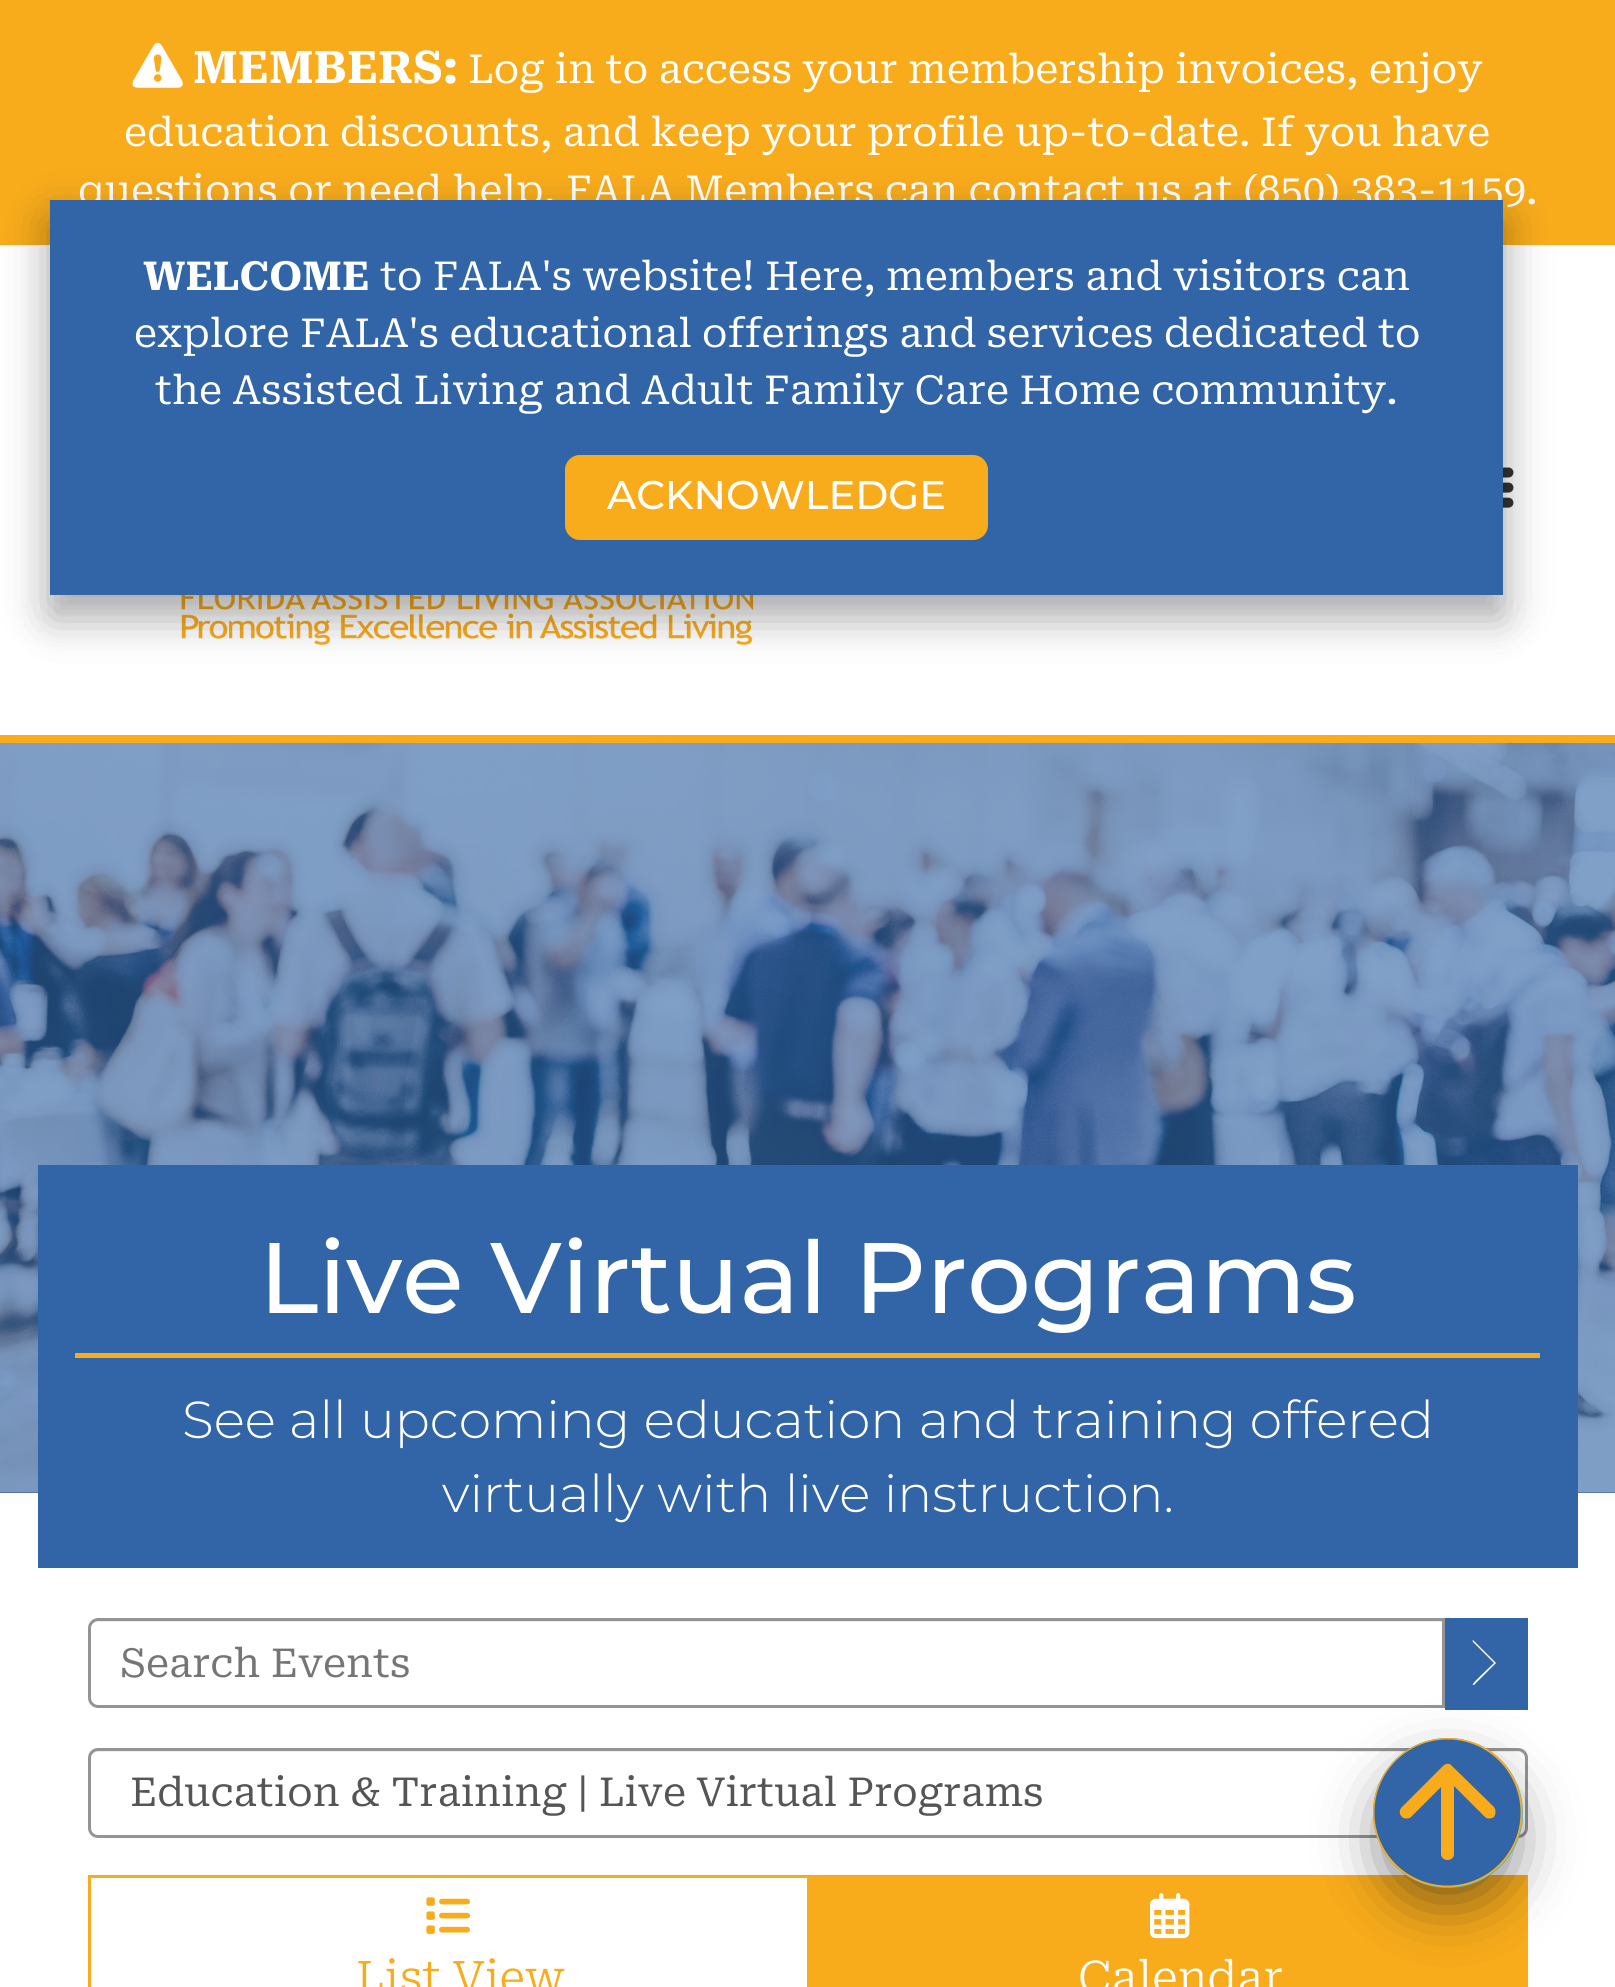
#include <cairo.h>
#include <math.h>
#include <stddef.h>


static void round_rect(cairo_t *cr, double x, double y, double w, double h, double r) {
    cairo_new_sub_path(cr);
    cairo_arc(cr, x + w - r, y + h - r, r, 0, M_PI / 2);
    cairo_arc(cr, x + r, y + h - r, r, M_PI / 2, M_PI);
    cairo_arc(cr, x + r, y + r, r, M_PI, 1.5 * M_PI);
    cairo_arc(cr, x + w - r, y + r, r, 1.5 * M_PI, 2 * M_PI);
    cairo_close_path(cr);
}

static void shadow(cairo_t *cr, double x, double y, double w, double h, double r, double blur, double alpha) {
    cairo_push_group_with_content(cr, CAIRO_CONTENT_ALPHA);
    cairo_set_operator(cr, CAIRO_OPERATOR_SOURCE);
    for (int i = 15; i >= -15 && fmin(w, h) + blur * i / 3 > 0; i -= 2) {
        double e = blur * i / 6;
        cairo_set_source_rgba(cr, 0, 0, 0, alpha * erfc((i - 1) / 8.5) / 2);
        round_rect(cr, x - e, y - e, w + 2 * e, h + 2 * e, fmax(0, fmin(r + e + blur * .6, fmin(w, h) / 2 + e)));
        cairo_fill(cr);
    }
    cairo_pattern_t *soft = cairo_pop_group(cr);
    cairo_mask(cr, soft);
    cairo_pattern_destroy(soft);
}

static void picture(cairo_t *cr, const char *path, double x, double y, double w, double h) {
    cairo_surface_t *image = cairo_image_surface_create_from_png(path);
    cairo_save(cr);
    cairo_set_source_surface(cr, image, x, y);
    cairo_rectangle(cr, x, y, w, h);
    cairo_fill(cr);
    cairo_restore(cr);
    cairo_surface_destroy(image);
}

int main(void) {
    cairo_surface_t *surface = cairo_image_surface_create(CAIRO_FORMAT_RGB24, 1615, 1987);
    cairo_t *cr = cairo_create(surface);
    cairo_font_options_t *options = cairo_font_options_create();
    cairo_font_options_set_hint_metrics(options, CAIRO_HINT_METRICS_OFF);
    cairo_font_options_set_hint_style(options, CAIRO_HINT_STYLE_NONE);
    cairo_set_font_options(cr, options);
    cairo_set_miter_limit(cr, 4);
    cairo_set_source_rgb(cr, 1, 1, 1);
    cairo_paint(cr);
    cairo_set_source_rgb(cr, 0.976, 0.675, 0.106);
    cairo_rectangle(cr, 0, 0, 1615, 245);
    cairo_fill(cr);
    picture(cr, "img1.png", 132, 42, 51, 46);
    cairo_select_font_face(cr, "Roboto Serif", CAIRO_FONT_SLANT_NORMAL, CAIRO_FONT_WEIGHT_BOLD);
    cairo_set_font_size(cr, 45);
    cairo_set_source_rgb(cr, 1, 1, 1);
    cairo_move_to(cr, 193, 83);
    cairo_show_text(cr, "MEMBERS:");
    cairo_select_font_face(cr, "Roboto Serif", CAIRO_FONT_SLANT_NORMAL, CAIRO_FONT_WEIGHT_NORMAL);
    cairo_set_font_size(cr, 40);
    cairo_move_to(cr, 468, 83);
    cairo_show_text(cr, "Log in to access your membership invoices, enjoy");
    cairo_move_to(cr, 124, 146);
    cairo_show_text(cr, "education discounts, and keep your profile up-to-date. If you have");
    cairo_move_to(cr, 78, 204);
    cairo_show_text(cr, "questions or need help, FALA Members can contact us at (850) 383-1159.");
    picture(cr, "img2.png", 1503, 467, 11, 41);
    picture(cr, "img3.png", 181, 595, 573, 50);
    cairo_set_source_rgb(cr, 0, 0, 0);
    shadow(cr, 50, 215, 1453, 395, 0, 25, 0.19);
    shadow(cr, 50, 225, 1453, 395, 0, 20, 0.2);
    cairo_set_source_rgb(cr, 0.192, 0.396, 0.659);
    cairo_rectangle(cr, 50, 200, 1453, 395);
    cairo_fill(cr);
    cairo_select_font_face(cr, "Roboto Serif", CAIRO_FONT_SLANT_NORMAL, CAIRO_FONT_WEIGHT_BOLD);
    cairo_set_source_rgb(cr, 1, 1, 1);
    cairo_move_to(cr, 143, 290);
    cairo_show_text(cr, "WELCOME");
    cairo_select_font_face(cr, "Roboto Serif", CAIRO_FONT_SLANT_NORMAL, CAIRO_FONT_WEIGHT_NORMAL);
    cairo_move_to(cr, 380, 290);
    cairo_show_text(cr, "to FALA's website! Here, members and visitors can");
    cairo_move_to(cr, 134, 347);
    cairo_show_text(cr, "explore FALA's educational offerings and services dedicated to");
    cairo_move_to(cr, 155, 404);
    cairo_show_text(cr, "the Assisted Living and Adult Family Care Home community.");
    cairo_set_source_rgb(cr, 0.976, 0.675, 0.106);
    round_rect(cr, 562.5, 452.5, 428, 90, 17.5);
    cairo_fill_preserve(cr);
    cairo_set_source_rgb(cr, 0.192, 0.396, 0.659);
    cairo_set_line_width(cr, 5);
    cairo_stroke(cr);
    cairo_select_font_face(cr, "Montserrat Medium", CAIRO_FONT_SLANT_NORMAL, CAIRO_FONT_WEIGHT_NORMAL);
    cairo_set_source_rgb(cr, 1, 1, 1);
    cairo_move_to(cr, 607, 509);
    cairo_show_text(cr, "ACKNOWLEDGE");
    cairo_set_source_rgb(cr, 0.976, 0.675, 0.106);
    cairo_rectangle(cr, 0, 735, 1615, 8);
    cairo_fill(cr);
    cairo_set_source_rgb(cr, 0.176, 0.349, 0.525);
    cairo_rectangle(cr, 0, 1492, 1615, 1);
    cairo_fill(cr);
    picture(cr, "img4.png", 0, 743, 1615, 750);
    cairo_set_source_rgb(cr, 0.192, 0.396, 0.659);
    cairo_rectangle(cr, 38, 1165, 1540, 403);
    cairo_fill(cr);
    cairo_set_source_rgb(cr, 0.976, 0.675, 0.106);
    cairo_rectangle(cr, 75, 1353, 1465, 5);
    cairo_fill(cr);
    cairo_set_font_size(cr, 100);
    cairo_set_source_rgb(cr, 1, 1, 1);
    cairo_move_to(cr, 259, 1313);
    cairo_show_text(cr, "Live Virtual Programs");
    cairo_select_font_face(cr, "Montserrat Light", CAIRO_FONT_SLANT_NORMAL, CAIRO_FONT_WEIGHT_NORMAL);
    cairo_set_font_size(cr, 52);
    cairo_move_to(cr, 182, 1438);
    cairo_show_text(cr, "See all upcoming education and training offered");
    cairo_move_to(cr, 442, 1512);
    cairo_show_text(cr, "virtually with live instruction.");
    cairo_set_source_rgb(cr, 0.925, 0.925, 0.925);
    cairo_new_path(cr);
    cairo_move_to(cr, 98, 1622);
    cairo_line_to(cr, 1442, 1622);
    cairo_line_to(cr, 1442, 1705);
    cairo_line_to(cr, 1443, 1705);
    cairo_line_to(cr, 1443, 1620);
    cairo_line_to(cr, 98, 1620);
    cairo_curve_to(cr, 94, 1620, 90, 1624, 90, 1628);
    cairo_line_to(cr, 90, 1630);
    cairo_curve_to(cr, 90, 1626, 93, 1622, 98, 1622);
    cairo_close_path(cr);
    cairo_fill(cr);
    cairo_new_path(cr);
    cairo_move_to(cr, 98, 1619.5);
    cairo_line_to(cr, 1443.5, 1619.5);
    cairo_line_to(cr, 1443.5, 1706.5);
    cairo_line_to(cr, 98, 1706.5);
    cairo_curve_to(cr, 93.5, 1706.5, 89.5, 1702.5, 89.5, 1698);
    cairo_line_to(cr, 89.5, 1628);
    cairo_curve_to(cr, 89.5, 1623.5, 93.5, 1619.5, 98, 1619.5);
    cairo_close_path(cr);
    cairo_set_source_rgb(cr, 0.58, 0.58, 0.58);
    cairo_set_line_width(cr, 3);
    cairo_stroke(cr);
    cairo_select_font_face(cr, "Roboto Serif", CAIRO_FONT_SLANT_NORMAL, CAIRO_FONT_WEIGHT_NORMAL);
    cairo_set_font_size(cr, 40);
    cairo_set_source_rgb(cr, 0.459, 0.459, 0.459);
    cairo_move_to(cr, 120, 1677);
    cairo_show_text(cr, "Search Events");
    cairo_set_source_rgb(cr, 0.192, 0.396, 0.659);
    cairo_rectangle(cr, 1445, 1618, 83, 92);
    cairo_fill(cr);
    cairo_set_source_rgb(cr, 1, 1, 1);
    cairo_new_path(cr);
    cairo_move_to(cr, 1473, 1640);
    cairo_line_to(cr, 1496, 1663);
    cairo_line_to(cr, 1474, 1685);
    cairo_line_to(cr, 1473, 1685);
    cairo_curve_to(cr, 1472, 1684, 1474, 1682, 1494, 1663);
    cairo_line_to(cr, 1473, 1642);
    cairo_curve_to(cr, 1472, 1641, 1473, 1640, 1473, 1640);
    cairo_close_path(cr);
    cairo_fill(cr);
    cairo_set_source_rgb(cr, 0.925, 0.925, 0.925);
    cairo_new_path(cr);
    cairo_move_to(cr, 98, 1752);
    cairo_line_to(cr, 1518, 1752);
    cairo_curve_to(cr, 1522, 1752, 1525, 1756, 1525, 1760);
    cairo_line_to(cr, 1525, 1758);
    cairo_curve_to(cr, 1525, 1754, 1521, 1750, 1517, 1750);
    cairo_line_to(cr, 98, 1750);
    cairo_curve_to(cr, 94, 1750, 90, 1754, 90, 1758);
    cairo_line_to(cr, 90, 1760);
    cairo_curve_to(cr, 90, 1756, 93, 1752, 98, 1752);
    cairo_close_path(cr);
    cairo_fill(cr);
    round_rect(cr, 89.5, 1749.5, 1437, 87, 8.5);
    cairo_set_source_rgb(cr, 0.58, 0.58, 0.58);
    cairo_stroke(cr);
    cairo_set_source_rgb(cr, 0.333, 0.333, 0.333);
    cairo_move_to(cr, 130, 1806);
    cairo_show_text(cr, "Education & Training | Live Virtual Programs");
    cairo_rectangle(cr, 89.5, 1876.5, 719, 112);
    cairo_set_source_rgb(cr, 0.976, 0.675, 0.106);
    cairo_stroke(cr);
    picture(cr, "img5.png", 426, 1897, 44, 37);
    cairo_select_font_face(cr, "Roboto Serif Light", CAIRO_FONT_SLANT_NORMAL, CAIRO_FONT_WEIGHT_NORMAL);
    cairo_set_font_size(cr, 45);
    cairo_move_to(cr, 356, 1993);
    cairo_show_text(cr, "List View");
    cairo_rectangle(cr, 810, 1875, 718, 112);
    cairo_fill(cr);
    picture(cr, "img6.png", 1150, 1893, 40, 46);
    cairo_set_source_rgb(cr, 1, 1, 1);
    cairo_move_to(cr, 1078, 1993);
    cairo_show_text(cr, "Calendar");
    cairo_set_source_rgb(cr, 0.086, 0.086, 0.086);
    shadow(cr, 1385, 1775, 125, 125, 62.5, 31, 0.6);
    cairo_set_source_rgb(cr, 0.173, 0.702, 0.941);
    cairo_arc(cr, 1448, 1813, 75, 0, 2 * M_PI);
    cairo_fill(cr);
    cairo_set_source_rgb(cr, 0.192, 0.396, 0.659);
    cairo_arc(cr, 1447.5, 1812.5, 74, 0, 2 * M_PI);
    cairo_fill(cr);
    cairo_save(cr);
    round_rect(cr, 1373, 1738, 150, 150, 75);
    cairo_clip(cr);
    cairo_arc(cr, 1447.5, 1812.5, 74, 0, 2 * M_PI);
    cairo_set_source_rgb(cr, 0.976, 0.675, 0.106);
    cairo_set_line_width(cr, 1.9);
    cairo_stroke(cr);
    cairo_restore(cr);
    cairo_set_source_rgb(cr, 0.976, 0.675, 0.106);
    cairo_new_path(cr);
    cairo_move_to(cr, 1441, 1854);
    cairo_curve_to(cr, 1441, 1862, 1454, 1862, 1454, 1854);
    cairo_close_path(cr);
    cairo_move_to(cr, 1452, 1766);
    cairo_curve_to(cr, 1450, 1763, 1446, 1763, 1443, 1766);
    cairo_line_to(cr, 1402, 1807);
    cairo_curve_to(cr, 1399, 1810, 1399, 1814, 1402, 1817);
    cairo_curve_to(cr, 1404, 1819, 1409, 1819, 1411, 1817);
    cairo_line_to(cr, 1448, 1780);
    cairo_line_to(cr, 1485, 1817);
    cairo_curve_to(cr, 1487, 1819, 1491, 1819, 1494, 1817);
    cairo_curve_to(cr, 1496, 1814, 1496, 1810, 1494, 1807);
    cairo_close_path(cr);
    cairo_move_to(cr, 1454, 1854);
    cairo_line_to(cr, 1454, 1771);
    cairo_line_to(cr, 1441, 1771);
    cairo_line_to(cr, 1441, 1854);
    cairo_close_path(cr);
    cairo_fill(cr);
    cairo_surface_write_to_png(surface, "page.png");
    cairo_font_options_destroy(options);
    cairo_destroy(cr);
    cairo_surface_destroy(surface);
    return 0;
}
